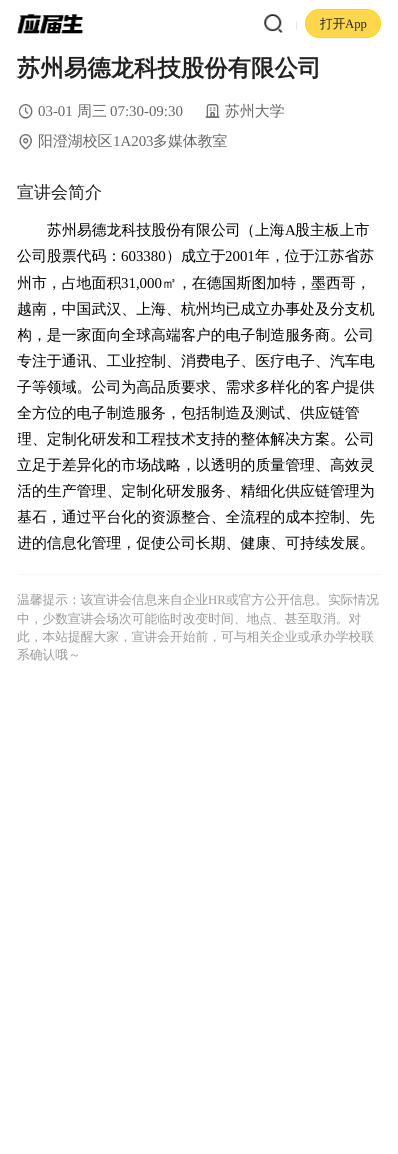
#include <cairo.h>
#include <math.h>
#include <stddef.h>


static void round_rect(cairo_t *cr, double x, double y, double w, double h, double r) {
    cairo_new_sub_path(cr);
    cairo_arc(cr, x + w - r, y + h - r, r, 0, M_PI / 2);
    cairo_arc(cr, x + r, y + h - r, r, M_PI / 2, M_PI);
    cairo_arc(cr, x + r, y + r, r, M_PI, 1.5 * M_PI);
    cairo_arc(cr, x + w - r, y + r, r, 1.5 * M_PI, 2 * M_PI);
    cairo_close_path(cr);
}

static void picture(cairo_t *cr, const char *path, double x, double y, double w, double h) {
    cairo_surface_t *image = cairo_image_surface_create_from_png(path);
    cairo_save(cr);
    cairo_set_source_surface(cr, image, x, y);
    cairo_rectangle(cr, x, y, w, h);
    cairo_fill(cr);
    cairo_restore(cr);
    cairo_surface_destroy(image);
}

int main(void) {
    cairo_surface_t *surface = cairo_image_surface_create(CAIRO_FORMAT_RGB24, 398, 1154);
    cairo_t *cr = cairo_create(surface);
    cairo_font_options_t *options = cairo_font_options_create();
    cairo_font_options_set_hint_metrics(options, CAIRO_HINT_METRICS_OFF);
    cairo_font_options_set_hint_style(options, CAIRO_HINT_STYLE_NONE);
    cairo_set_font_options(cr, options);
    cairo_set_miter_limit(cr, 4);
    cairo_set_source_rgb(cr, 1, 1, 1);
    cairo_paint(cr);
    picture(cr, "img1.png", 17, 14, 67, 20);
    picture(cr, "img2.png", 264, 14, 19, 19);
    cairo_set_source_rgb(cr, 1, 0.843, 0.302);
    round_rect(cr, 305.5, 9.5, 75, 28, 14);
    cairo_fill_preserve(cr);
    cairo_set_source_rgb(cr, 1, 0.831, 0);
    cairo_set_line_width(cr, 1);
    cairo_stroke(cr);
    cairo_set_source_rgb(cr, 0.902, 0.902, 0.902);
    cairo_rectangle(cr, 296, 21, 1, 9);
    cairo_fill(cr);
    cairo_select_font_face(cr, "WenQuanYi Zen Hei Medium", CAIRO_FONT_SLANT_NORMAL, CAIRO_FONT_WEIGHT_NORMAL);
    cairo_set_font_size(cr, 12.75);
    cairo_set_source_rgb(cr, 0.133, 0.133, 0.133);
    cairo_move_to(cr, 320, 28);
    cairo_show_text(cr, "打开");
    cairo_select_font_face(cr, "Liberation Serif", CAIRO_FONT_SLANT_NORMAL, CAIRO_FONT_WEIGHT_NORMAL);
    cairo_move_to(cr, 345, 28);
    cairo_show_text(cr, "App");
    cairo_select_font_face(cr, "WenQuanYi Zen Hei", CAIRO_FONT_SLANT_NORMAL, CAIRO_FONT_WEIGHT_BOLD);
    cairo_set_font_size(cr, 23.4);
    cairo_move_to(cr, 17, 76);
    cairo_show_text(cr, "苏州易德龙科技股份有限公司");
    picture(cr, "img3.png", 19, 104, 14, 15);
    cairo_select_font_face(cr, "Liberation Serif", CAIRO_FONT_SLANT_NORMAL, CAIRO_FONT_WEIGHT_NORMAL);
    cairo_set_font_size(cr, 14.9);
    cairo_set_source_rgb(cr, 0.4, 0.4, 0.4);
    cairo_move_to(cr, 38, 116);
    cairo_show_text(cr, "03-01");
    cairo_select_font_face(cr, "WenQuanYi Zen Hei Medium", CAIRO_FONT_SLANT_NORMAL, CAIRO_FONT_WEIGHT_NORMAL);
    cairo_move_to(cr, 77, 116);
    cairo_show_text(cr, "周三");
    cairo_select_font_face(cr, "Liberation Serif", CAIRO_FONT_SLANT_NORMAL, CAIRO_FONT_WEIGHT_NORMAL);
    cairo_move_to(cr, 110, 116);
    cairo_show_text(cr, "07:30-09:30");
    picture(cr, "img4.png", 205, 104, 15, 14);
    cairo_select_font_face(cr, "WenQuanYi Zen Hei Medium", CAIRO_FONT_SLANT_NORMAL, CAIRO_FONT_WEIGHT_NORMAL);
    cairo_move_to(cr, 225, 116);
    cairo_show_text(cr, "苏州大学");
    picture(cr, "img5.png", 19, 134, 14, 16);
    cairo_move_to(cr, 38, 146);
    cairo_show_text(cr, "阳澄湖校区");
    cairo_select_font_face(cr, "Liberation Serif", CAIRO_FONT_SLANT_NORMAL, CAIRO_FONT_WEIGHT_NORMAL);
    cairo_move_to(cr, 113, 146);
    cairo_show_text(cr, "1A203");
    cairo_select_font_face(cr, "WenQuanYi Zen Hei Medium", CAIRO_FONT_SLANT_NORMAL, CAIRO_FONT_WEIGHT_NORMAL);
    cairo_move_to(cr, 153, 146);
    cairo_show_text(cr, "多媒体教室");
    cairo_set_font_size(cr, 17);
    cairo_set_source_rgb(cr, 0.133, 0.133, 0.133);
    cairo_move_to(cr, 17, 198);
    cairo_show_text(cr, "宣讲会简介");
    cairo_set_font_size(cr, 14.9);
    cairo_set_source_rgb(cr, 0, 0, 0);
    cairo_move_to(cr, 47, 235);
    cairo_show_text(cr, "苏州易德龙科技股份有限公司");
    cairo_move_to(cr, 240, 235);
    cairo_show_text(cr, "（上海");
    cairo_select_font_face(cr, "Liberation Serif", CAIRO_FONT_SLANT_NORMAL, CAIRO_FONT_WEIGHT_NORMAL);
    cairo_move_to(cr, 285, 235);
    cairo_show_text(cr, "A");
    cairo_select_font_face(cr, "WenQuanYi Zen Hei Medium", CAIRO_FONT_SLANT_NORMAL, CAIRO_FONT_WEIGHT_NORMAL);
    cairo_move_to(cr, 295, 235);
    cairo_show_text(cr, "股主板上市");
    cairo_move_to(cr, 17, 261);
    cairo_show_text(cr, "公司股票代码：");
    cairo_select_font_face(cr, "Liberation Serif", CAIRO_FONT_SLANT_NORMAL, CAIRO_FONT_WEIGHT_NORMAL);
    cairo_move_to(cr, 121, 261);
    cairo_show_text(cr, "603380");
    cairo_select_font_face(cr, "WenQuanYi Zen Hei Medium", CAIRO_FONT_SLANT_NORMAL, CAIRO_FONT_WEIGHT_NORMAL);
    cairo_move_to(cr, 166, 261);
    cairo_show_text(cr, "）成立于");
    cairo_select_font_face(cr, "Liberation Serif", CAIRO_FONT_SLANT_NORMAL, CAIRO_FONT_WEIGHT_NORMAL);
    cairo_move_to(cr, 225, 261);
    cairo_show_text(cr, "2001");
    cairo_select_font_face(cr, "WenQuanYi Zen Hei Medium", CAIRO_FONT_SLANT_NORMAL, CAIRO_FONT_WEIGHT_NORMAL);
    cairo_move_to(cr, 255, 261);
    cairo_show_text(cr, "年，位于江苏省苏");
    cairo_save(cr);
    cairo_rectangle(cr, 18, 218, 363, 338);
    cairo_clip(cr);
    cairo_move_to(cr, 17, 288);
    cairo_show_text(cr, "州市，占地面积");
    cairo_restore(cr);
    cairo_select_font_face(cr, "Liberation Serif", CAIRO_FONT_SLANT_NORMAL, CAIRO_FONT_WEIGHT_NORMAL);
    cairo_move_to(cr, 121, 288);
    cairo_show_text(cr, "31,000");
    cairo_select_font_face(cr, "WenQuanYi Zen Hei Medium", CAIRO_FONT_SLANT_NORMAL, CAIRO_FONT_WEIGHT_NORMAL);
    cairo_move_to(cr, 162, 288);
    cairo_show_text(cr, "㎡，在德国斯图加特，墨西哥，");
    cairo_move_to(cr, 17, 314);
    cairo_show_text(cr, "越南，中国武汉、上海、杭州均已成立办事处及分支机");
    cairo_save(cr);
    cairo_rectangle(cr, 18, 218, 363, 338);
    cairo_clip(cr);
    cairo_move_to(cr, 17, 340);
    cairo_show_text(cr, "构，是一家面向全球高端客户的电子制造服务商。");
    cairo_restore(cr);
    cairo_move_to(cr, 344, 340);
    cairo_show_text(cr, "公司");
    cairo_move_to(cr, 17, 366);
    cairo_show_text(cr, "专注于通讯、工业控制、消费电子、医疗电子、汽车电");
    cairo_move_to(cr, 17, 392);
    cairo_show_text(cr, "子等领域。公司为高品质要求、需求多样化的客户提供");
    cairo_move_to(cr, 17, 418);
    cairo_show_text(cr, "全方位的电子制造服务，包括制造及测试、供应链管");
    cairo_save(cr);
    cairo_rectangle(cr, 18, 218, 363, 338);
    cairo_clip(cr);
    cairo_move_to(cr, 17, 444);
    cairo_show_text(cr, "理、定制化研发和工程技术支持的整体解决方案。公司");
    cairo_restore(cr);
    cairo_move_to(cr, 17, 470);
    cairo_show_text(cr, "立足于差异化的市场战略，以透明的质量管理、高效灵");
    cairo_save(cr);
    cairo_rectangle(cr, 18, 218, 363, 338);
    cairo_clip(cr);
    cairo_move_to(cr, 17, 496);
    cairo_show_text(cr, "活的生产管理、定制化研发服务、精细化供应链管理为");
    cairo_move_to(cr, 17, 522);
    cairo_show_text(cr, "基石，通过平台化的资源整合、全流程的成本控制、先");
    cairo_move_to(cr, 17, 548);
    cairo_show_text(cr, "进的信息化管理，促使公司长期、健康、可持续发展。");
    cairo_restore(cr);
    cairo_set_source_rgb(cr, 0.965, 0.965, 0.965);
    cairo_rectangle(cr, 18, 574, 363, 1);
    cairo_fill(cr);
    cairo_set_font_size(cr, 12.75);
    cairo_set_source_rgb(cr, 0.6, 0.6, 0.6);
    cairo_move_to(cr, 17, 604);
    cairo_show_text(cr, "温馨提示：该宣讲会信息来自企业");
    cairo_select_font_face(cr, "Liberation Serif", CAIRO_FONT_SLANT_NORMAL, CAIRO_FONT_WEIGHT_NORMAL);
    cairo_move_to(cr, 208, 604);
    cairo_show_text(cr, "HR");
    cairo_select_font_face(cr, "WenQuanYi Zen Hei Medium", CAIRO_FONT_SLANT_NORMAL, CAIRO_FONT_WEIGHT_NORMAL);
    cairo_move_to(cr, 226, 604);
    cairo_show_text(cr, "或官方公开信息。实际情况");
    cairo_move_to(cr, 17, 623);
    cairo_show_text(cr, "中，少数宣讲会场次可能临时改变时间、地点、甚至取消。对");
    cairo_move_to(cr, 17, 641);
    cairo_show_text(cr, "此，本站提醒大家，宣讲会开始前，可与相关企业或承办学校联");
    cairo_move_to(cr, 17, 659);
    cairo_show_text(cr, "系确认哦～");
    cairo_surface_write_to_png(surface, "page.png");
    cairo_font_options_destroy(options);
    cairo_destroy(cr);
    cairo_surface_destroy(surface);
    return 0;
}
